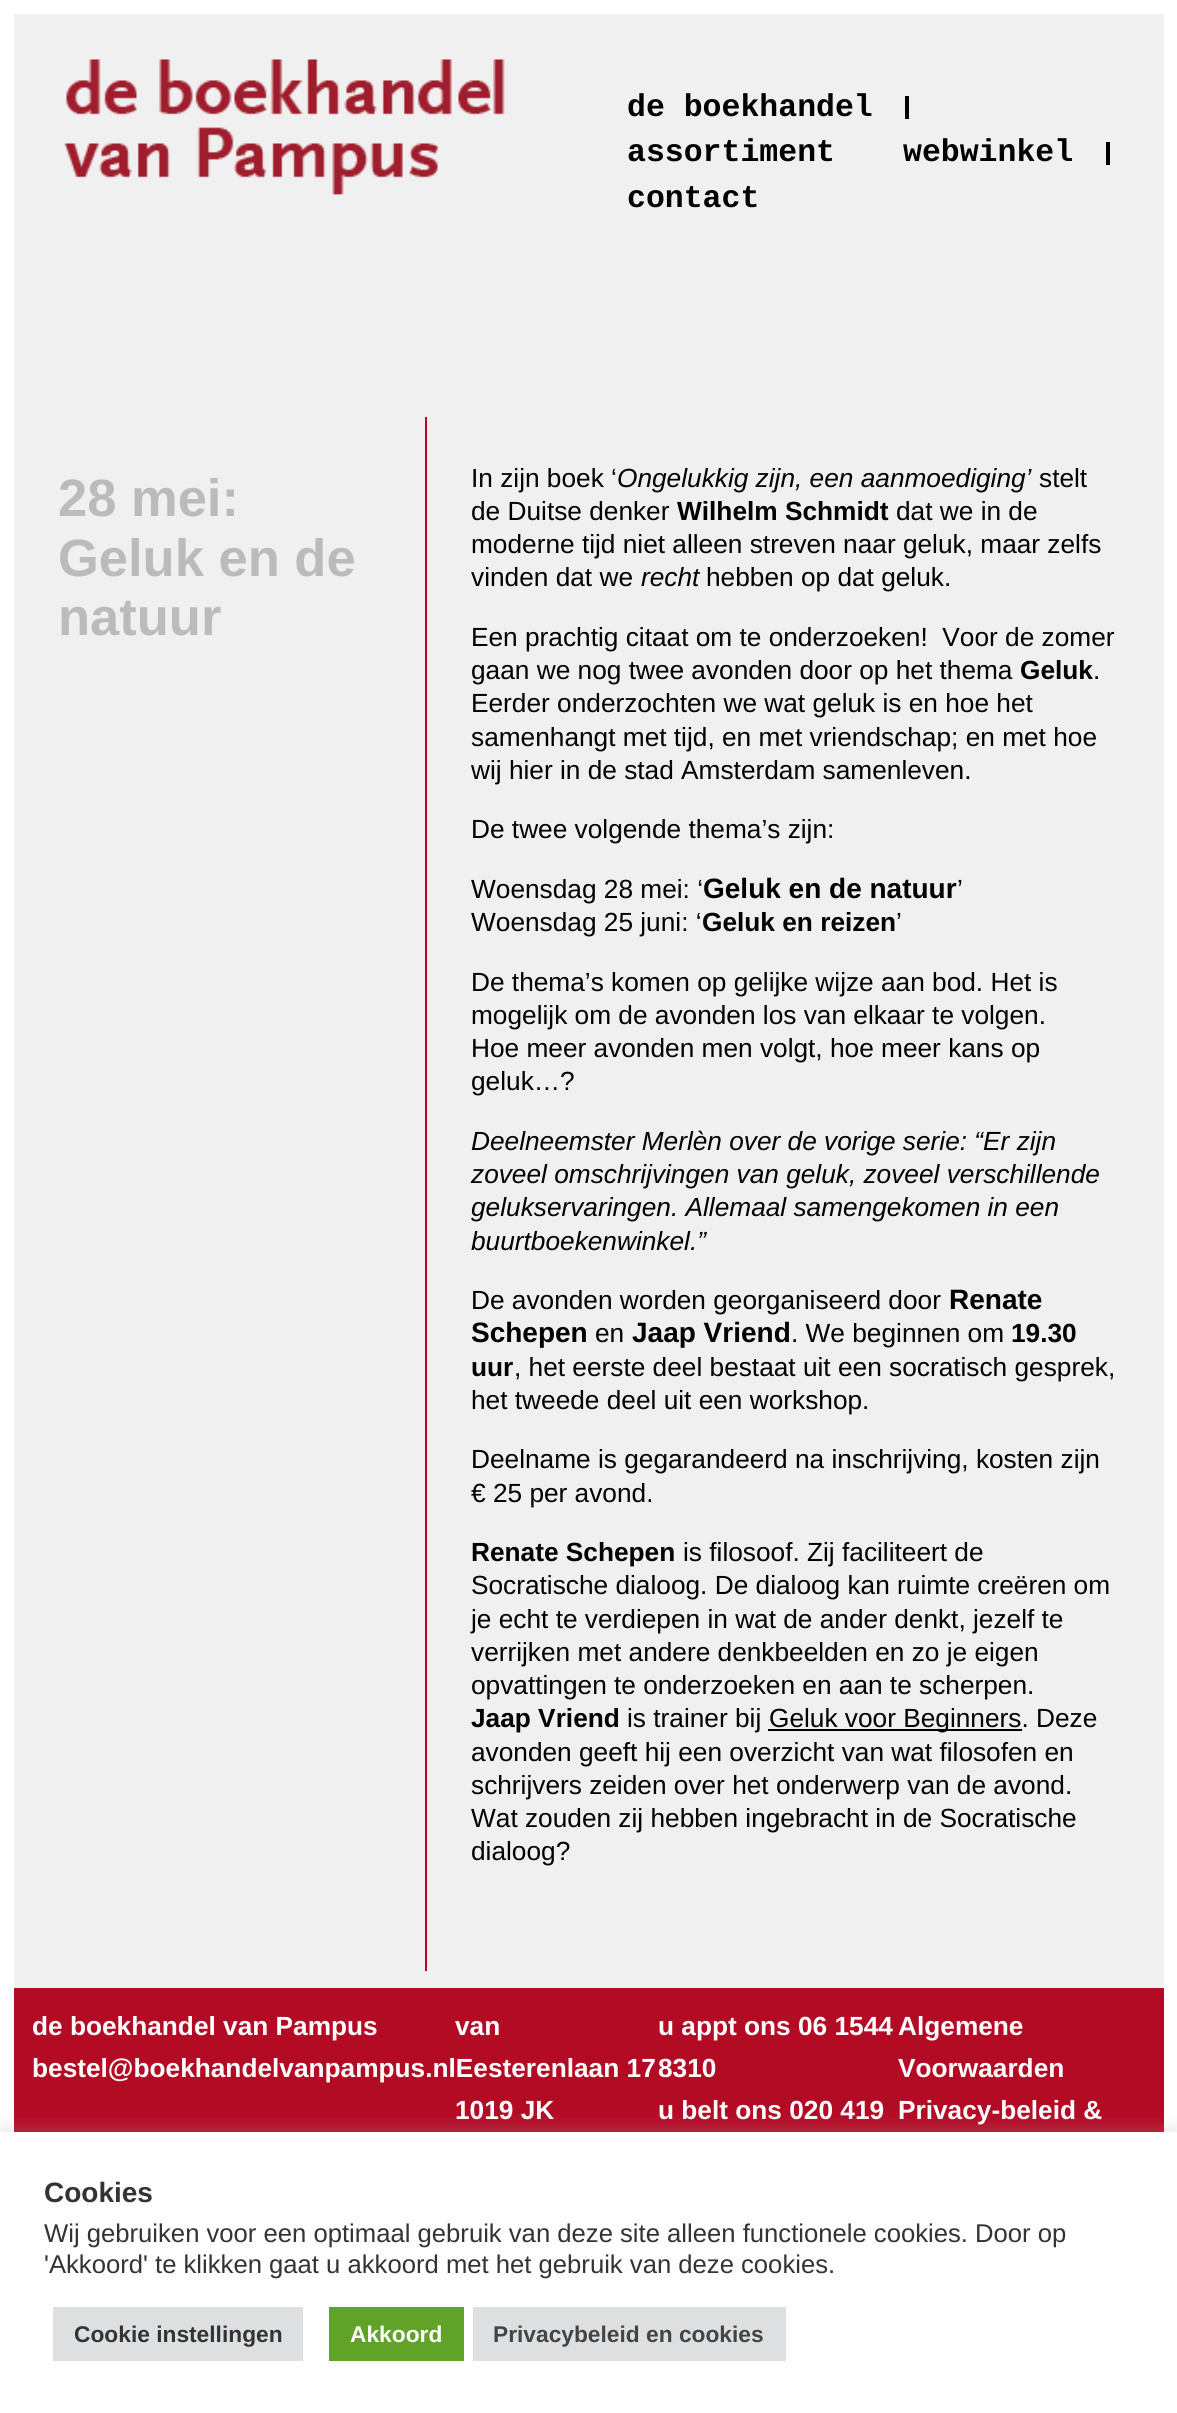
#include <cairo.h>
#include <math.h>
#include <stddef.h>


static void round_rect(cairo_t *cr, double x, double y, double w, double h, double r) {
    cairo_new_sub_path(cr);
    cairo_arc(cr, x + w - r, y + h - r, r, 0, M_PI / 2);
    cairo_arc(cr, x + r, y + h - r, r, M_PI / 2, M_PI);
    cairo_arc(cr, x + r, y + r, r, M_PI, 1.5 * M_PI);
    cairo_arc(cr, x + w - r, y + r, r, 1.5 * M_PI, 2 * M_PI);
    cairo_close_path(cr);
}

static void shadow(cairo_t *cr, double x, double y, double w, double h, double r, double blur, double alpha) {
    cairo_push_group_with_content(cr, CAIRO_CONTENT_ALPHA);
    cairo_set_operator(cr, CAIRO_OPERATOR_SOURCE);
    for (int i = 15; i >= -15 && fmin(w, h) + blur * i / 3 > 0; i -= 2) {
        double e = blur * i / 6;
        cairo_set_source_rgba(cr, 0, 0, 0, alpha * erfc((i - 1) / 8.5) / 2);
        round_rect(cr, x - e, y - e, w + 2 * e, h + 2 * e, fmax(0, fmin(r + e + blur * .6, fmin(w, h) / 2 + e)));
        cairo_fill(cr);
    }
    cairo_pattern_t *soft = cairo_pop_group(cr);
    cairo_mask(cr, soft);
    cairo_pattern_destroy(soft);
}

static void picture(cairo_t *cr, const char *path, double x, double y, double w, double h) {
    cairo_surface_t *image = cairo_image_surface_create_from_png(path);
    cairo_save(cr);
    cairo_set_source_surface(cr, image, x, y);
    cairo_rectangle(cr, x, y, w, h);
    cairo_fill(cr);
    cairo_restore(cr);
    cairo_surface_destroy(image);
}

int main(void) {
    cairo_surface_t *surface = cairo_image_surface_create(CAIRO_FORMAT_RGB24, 1177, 2413);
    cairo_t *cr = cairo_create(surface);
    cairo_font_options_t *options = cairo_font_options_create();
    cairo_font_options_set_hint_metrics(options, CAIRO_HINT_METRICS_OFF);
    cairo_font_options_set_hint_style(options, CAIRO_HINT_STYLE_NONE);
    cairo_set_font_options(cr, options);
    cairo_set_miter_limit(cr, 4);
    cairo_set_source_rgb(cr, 1, 1, 1);
    cairo_paint(cr);
    cairo_set_source_rgb(cr, 0.941, 0.941, 0.941);
    cairo_rectangle(cr, 14, 14, 1150, 1974);
    cairo_fill(cr);
    picture(cr, "img1.png", 64, 59, 441, 136);
    cairo_select_font_face(cr, "Liberation Mono", CAIRO_FONT_SLANT_NORMAL, CAIRO_FONT_WEIGHT_BOLD);
    cairo_set_font_size(cr, 31.5);
    cairo_set_source_rgb(cr, 0, 0, 0);
    cairo_move_to(cr, 627, 116);
    cairo_show_text(cr, "de boekhandel");
    cairo_rectangle(cr, 905, 96, 4, 23);
    cairo_fill(cr);
    cairo_move_to(cr, 627, 161);
    cairo_show_text(cr, "assortiment");
    cairo_move_to(cr, 903, 161);
    cairo_show_text(cr, "webwinkel");
    cairo_rectangle(cr, 1106, 142, 4, 23);
    cairo_fill(cr);
    cairo_move_to(cr, 627, 207);
    cairo_show_text(cr, "contact");
    cairo_select_font_face(cr, "Liberation Sans", CAIRO_FONT_SLANT_NORMAL, CAIRO_FONT_WEIGHT_BOLD);
    cairo_set_font_size(cr, 52.5);
    cairo_set_source_rgb(cr, 0.733, 0.733, 0.733);
    cairo_move_to(cr, 58, 516);
    cairo_show_text(cr, "28 mei:");
    cairo_move_to(cr, 58, 576);
    cairo_show_text(cr, "Geluk en de");
    cairo_move_to(cr, 58, 635);
    cairo_show_text(cr, "natuur");
    cairo_set_source_rgb(cr, 0.706, 0.043, 0.145);
    cairo_rectangle(cr, 425, 417, 2, 1554);
    cairo_fill(cr);
    cairo_select_font_face(cr, "Liberation Sans", CAIRO_FONT_SLANT_NORMAL, CAIRO_FONT_WEIGHT_NORMAL);
    cairo_set_font_size(cr, 26.25);
    cairo_set_source_rgb(cr, 0, 0, 0);
    cairo_move_to(cr, 471, 487);
    cairo_show_text(cr, "In zijn boek ‘");
    cairo_select_font_face(cr, "Liberation Sans", CAIRO_FONT_SLANT_ITALIC, CAIRO_FONT_WEIGHT_NORMAL);
    cairo_move_to(cr, 617, 487);
    cairo_show_text(cr, "Ongelukkig zijn, een aanmoediging’");
    cairo_select_font_face(cr, "Liberation Sans", CAIRO_FONT_SLANT_NORMAL, CAIRO_FONT_WEIGHT_NORMAL);
    cairo_move_to(cr, 1039, 487);
    cairo_show_text(cr, "stelt");
    cairo_move_to(cr, 471, 520);
    cairo_show_text(cr, "de Duitse denker");
    cairo_select_font_face(cr, "Liberation Sans", CAIRO_FONT_SLANT_NORMAL, CAIRO_FONT_WEIGHT_BOLD);
    cairo_move_to(cr, 677, 520);
    cairo_show_text(cr, "Wilhelm Schmidt");
    cairo_select_font_face(cr, "Liberation Sans", CAIRO_FONT_SLANT_NORMAL, CAIRO_FONT_WEIGHT_NORMAL);
    cairo_move_to(cr, 896, 520);
    cairo_show_text(cr, "dat we in de");
    cairo_move_to(cr, 471, 553);
    cairo_show_text(cr, "moderne tijd niet alleen streven naar geluk, maar zelfs");
    cairo_move_to(cr, 471, 586);
    cairo_show_text(cr, "vinden dat we");
    cairo_select_font_face(cr, "Liberation Sans", CAIRO_FONT_SLANT_ITALIC, CAIRO_FONT_WEIGHT_NORMAL);
    cairo_move_to(cr, 641, 586);
    cairo_show_text(cr, "recht");
    cairo_select_font_face(cr, "Liberation Sans", CAIRO_FONT_SLANT_NORMAL, CAIRO_FONT_WEIGHT_NORMAL);
    cairo_move_to(cr, 706, 586);
    cairo_show_text(cr, "hebben op dat geluk.");
    cairo_move_to(cr, 471, 646);
    cairo_show_text(cr, "Een prachtig citaat om te onderzoeken!  Voor de zomer");
    cairo_move_to(cr, 471, 679);
    cairo_show_text(cr, "gaan we nog twee avonden door op het thema");
    cairo_select_font_face(cr, "Liberation Sans", CAIRO_FONT_SLANT_NORMAL, CAIRO_FONT_WEIGHT_BOLD);
    cairo_move_to(cr, 1020, 679);
    cairo_show_text(cr, "Geluk");
    cairo_select_font_face(cr, "Liberation Sans", CAIRO_FONT_SLANT_NORMAL, CAIRO_FONT_WEIGHT_NORMAL);
    cairo_move_to(cr, 1093, 679);
    cairo_show_text(cr, ".");
    cairo_move_to(cr, 471, 712);
    cairo_show_text(cr, "Eerder onderzochten we wat geluk is en hoe het");
    cairo_move_to(cr, 471, 746);
    cairo_show_text(cr, "samenhangt met tijd, en met vriendschap; en met hoe");
    cairo_move_to(cr, 471, 779);
    cairo_show_text(cr, "wij hier in de stad Amsterdam samenleven.");
    cairo_move_to(cr, 471, 838);
    cairo_show_text(cr, "De twee volgende thema’s zijn:");
    cairo_move_to(cr, 471, 898);
    cairo_show_text(cr, "Woensdag 28 mei: ‘");
    cairo_select_font_face(cr, "Liberation Sans", CAIRO_FONT_SLANT_NORMAL, CAIRO_FONT_WEIGHT_BOLD);
    cairo_set_font_size(cr, 28);
    cairo_move_to(cr, 703, 898);
    cairo_show_text(cr, "Geluk en de natuur");
    cairo_select_font_face(cr, "Liberation Sans", CAIRO_FONT_SLANT_NORMAL, CAIRO_FONT_WEIGHT_NORMAL);
    cairo_set_font_size(cr, 26.25);
    cairo_move_to(cr, 957, 898);
    cairo_show_text(cr, "’");
    cairo_move_to(cr, 471, 931);
    cairo_show_text(cr, "Woensdag 25 juni: ‘");
    cairo_select_font_face(cr, "Liberation Sans", CAIRO_FONT_SLANT_NORMAL, CAIRO_FONT_WEIGHT_BOLD);
    cairo_move_to(cr, 702, 931);
    cairo_show_text(cr, "Geluk en reizen");
    cairo_select_font_face(cr, "Liberation Sans", CAIRO_FONT_SLANT_NORMAL, CAIRO_FONT_WEIGHT_NORMAL);
    cairo_move_to(cr, 896, 931);
    cairo_show_text(cr, "’");
    cairo_move_to(cr, 471, 991);
    cairo_show_text(cr, "De thema’s komen op gelijke wijze aan bod. Het is");
    cairo_move_to(cr, 471, 1024);
    cairo_show_text(cr, "mogelijk om de avonden los van elkaar te volgen.");
    cairo_move_to(cr, 471, 1057);
    cairo_show_text(cr, "Hoe meer avonden men volgt, hoe meer kans op");
    cairo_move_to(cr, 471, 1090);
    cairo_show_text(cr, "geluk…?");
    cairo_select_font_face(cr, "Liberation Sans", CAIRO_FONT_SLANT_ITALIC, CAIRO_FONT_WEIGHT_NORMAL);
    cairo_move_to(cr, 471, 1150);
    cairo_show_text(cr, "Deelneemster Merlèn over de vorige serie: “Er zijn");
    cairo_move_to(cr, 471, 1183);
    cairo_show_text(cr, "zoveel omschrijvingen van geluk, zoveel verschillende");
    cairo_move_to(cr, 471, 1216);
    cairo_show_text(cr, "gelukservaringen. Allemaal samengekomen in een");
    cairo_move_to(cr, 471, 1250);
    cairo_show_text(cr, "buurtboekenwinkel.”");
    cairo_select_font_face(cr, "Liberation Sans", CAIRO_FONT_SLANT_NORMAL, CAIRO_FONT_WEIGHT_NORMAL);
    cairo_move_to(cr, 471, 1309);
    cairo_show_text(cr, "De avonden worden georganiseerd door");
    cairo_select_font_face(cr, "Liberation Sans", CAIRO_FONT_SLANT_NORMAL, CAIRO_FONT_WEIGHT_BOLD);
    cairo_set_font_size(cr, 28);
    cairo_move_to(cr, 949, 1309);
    cairo_show_text(cr, "Renate");
    cairo_move_to(cr, 471, 1342);
    cairo_show_text(cr, "Schepen");
    cairo_select_font_face(cr, "Liberation Sans", CAIRO_FONT_SLANT_NORMAL, CAIRO_FONT_WEIGHT_NORMAL);
    cairo_set_font_size(cr, 26.25);
    cairo_move_to(cr, 595, 1342);
    cairo_show_text(cr, "en");
    cairo_select_font_face(cr, "Liberation Sans", CAIRO_FONT_SLANT_NORMAL, CAIRO_FONT_WEIGHT_BOLD);
    cairo_set_font_size(cr, 28);
    cairo_move_to(cr, 632, 1342);
    cairo_show_text(cr, "Jaap Vriend");
    cairo_select_font_face(cr, "Liberation Sans", CAIRO_FONT_SLANT_NORMAL, CAIRO_FONT_WEIGHT_NORMAL);
    cairo_set_font_size(cr, 26.25);
    cairo_move_to(cr, 791, 1342);
    cairo_show_text(cr, ". We beginnen om");
    cairo_select_font_face(cr, "Liberation Sans", CAIRO_FONT_SLANT_NORMAL, CAIRO_FONT_WEIGHT_BOLD);
    cairo_move_to(cr, 1011, 1342);
    cairo_show_text(cr, "19.30");
    cairo_move_to(cr, 471, 1376);
    cairo_show_text(cr, "uur");
    cairo_select_font_face(cr, "Liberation Sans", CAIRO_FONT_SLANT_NORMAL, CAIRO_FONT_WEIGHT_NORMAL);
    cairo_move_to(cr, 514, 1376);
    cairo_show_text(cr, ", het eerste deel bestaat uit een socratisch gesprek,");
    cairo_move_to(cr, 471, 1409);
    cairo_show_text(cr, "het tweede deel uit een workshop.");
    cairo_move_to(cr, 471, 1468);
    cairo_show_text(cr, "Deelname is gegarandeerd na inschrijving, kosten zijn");
    cairo_move_to(cr, 471, 1502);
    cairo_show_text(cr, "€ 25 per avond.");
    cairo_select_font_face(cr, "Liberation Sans", CAIRO_FONT_SLANT_NORMAL, CAIRO_FONT_WEIGHT_BOLD);
    cairo_move_to(cr, 471, 1561);
    cairo_show_text(cr, "Renate Schepen");
    cairo_select_font_face(cr, "Liberation Sans", CAIRO_FONT_SLANT_NORMAL, CAIRO_FONT_WEIGHT_NORMAL);
    cairo_move_to(cr, 683, 1561);
    cairo_show_text(cr, "is filosoof. Zij faciliteert de");
    cairo_move_to(cr, 471, 1594);
    cairo_show_text(cr, "Socratische dialoog. De dialoog kan ruimte creëren om");
    cairo_move_to(cr, 471, 1628);
    cairo_show_text(cr, "je echt te verdiepen in wat de ander denkt, jezelf te");
    cairo_move_to(cr, 471, 1661);
    cairo_show_text(cr, "verrijken met andere denkbeelden en zo je eigen");
    cairo_move_to(cr, 471, 1694);
    cairo_show_text(cr, "opvattingen te onderzoeken en aan te scherpen.");
    cairo_select_font_face(cr, "Liberation Sans", CAIRO_FONT_SLANT_NORMAL, CAIRO_FONT_WEIGHT_BOLD);
    cairo_move_to(cr, 471, 1727);
    cairo_show_text(cr, "Jaap Vriend");
    cairo_select_font_face(cr, "Liberation Sans", CAIRO_FONT_SLANT_NORMAL, CAIRO_FONT_WEIGHT_NORMAL);
    cairo_move_to(cr, 627, 1727);
    cairo_show_text(cr, "is trainer bij");
    cairo_rectangle(cr, 768, 1729, 254, 2);
    cairo_fill(cr);
    cairo_move_to(cr, 769, 1727);
    cairo_show_text(cr, "Geluk voor Beginners. Deze");
    cairo_move_to(cr, 471, 1761);
    cairo_show_text(cr, "avonden geeft hij een overzicht van wat filosofen en");
    cairo_move_to(cr, 471, 1794);
    cairo_show_text(cr, "schrijvers zeiden over het onderwerp van de avond.");
    cairo_move_to(cr, 471, 1827);
    cairo_show_text(cr, "Wat zouden zij hebben ingebracht in de Socratische");
    cairo_move_to(cr, 471, 1860);
    cairo_show_text(cr, "dialoog?");
    cairo_set_source_rgb(cr, 0.706, 0.043, 0.145);
    cairo_rectangle(cr, 14, 1988, 1150, 144);
    cairo_fill(cr);
    cairo_select_font_face(cr, "Liberation Sans", CAIRO_FONT_SLANT_NORMAL, CAIRO_FONT_WEIGHT_BOLD);
    cairo_set_source_rgb(cr, 1, 1, 1);
    cairo_move_to(cr, 32, 2035);
    cairo_show_text(cr, "de boekhandel van Pampus");
    cairo_move_to(cr, 32, 2077);
    cairo_show_text(cr, "bestel@boekhandelvanpampus.nlEesterenlaan 17");
    cairo_move_to(cr, 658, 2035);
    cairo_show_text(cr, "u appt ons 06 1544");
    cairo_move_to(cr, 658, 2077);
    cairo_show_text(cr, "8310");
    cairo_move_to(cr, 658, 2119);
    cairo_show_text(cr, "u belt ons 020 419");
    cairo_move_to(cr, 898, 2035);
    cairo_show_text(cr, "Algemene");
    cairo_move_to(cr, 898, 2077);
    cairo_show_text(cr, "Voorwaarden");
    cairo_move_to(cr, 898, 2119);
    cairo_show_text(cr, "Privacy-beleid &");
    cairo_move_to(cr, 455, 2035);
    cairo_show_text(cr, "van");
    cairo_move_to(cr, 455, 2119);
    cairo_show_text(cr, "1019 JK");
    cairo_set_source_rgb(cr, 0.675, 0.671, 0.671);
    shadow(cr, 0, 2130, 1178, 282, 0, 9, 0.3);
    cairo_set_source_rgb(cr, 1, 1, 1);
    cairo_rectangle(cr, 0, 2132, 1177, 281);
    cairo_fill(cr);
    cairo_set_font_size(cr, 28);
    cairo_set_source_rgb(cr, 0.2, 0.2, 0.2);
    cairo_move_to(cr, 44, 2202);
    cairo_show_text(cr, "Cookies");
    cairo_select_font_face(cr, "Liberation Sans", CAIRO_FONT_SLANT_NORMAL, CAIRO_FONT_WEIGHT_NORMAL);
    cairo_set_font_size(cr, 25.65);
    cairo_move_to(cr, 44, 2242);
    cairo_show_text(cr, "Wij gebruiken voor een optimaal gebruik van deze site alleen functionele cookies. Door op");
    cairo_move_to(cr, 44, 2273);
    cairo_show_text(cr, "'Akkoord' te klikken gaat u akkoord met het gebruik van deze cookies.");
    cairo_set_source_rgb(cr, 0.871, 0.875, 0.878);
    cairo_rectangle(cr, 53, 2307, 250, 54);
    cairo_fill(cr);
    cairo_select_font_face(cr, "Liberation Sans", CAIRO_FONT_SLANT_NORMAL, CAIRO_FONT_WEIGHT_BOLD);
    cairo_set_font_size(cr, 22.75);
    cairo_set_source_rgb(cr, 0.2, 0.2, 0.2);
    cairo_move_to(cr, 74, 2342);
    cairo_show_text(cr, "Cookie instellingen");
    cairo_set_source_rgb(cr, 0.38, 0.635, 0.161);
    cairo_rectangle(cr, 329, 2307, 135, 54);
    cairo_fill(cr);
    cairo_set_source_rgb(cr, 1, 1, 1);
    cairo_move_to(cr, 350, 2342);
    cairo_show_text(cr, "Akkoord");
    cairo_set_source_rgb(cr, 0.871, 0.875, 0.878);
    cairo_rectangle(cr, 473, 2307, 313, 54);
    cairo_fill(cr);
    cairo_set_source_rgb(cr, 0.267, 0.267, 0.267);
    cairo_move_to(cr, 493, 2342);
    cairo_show_text(cr, "Privacybeleid en cookies");
    cairo_surface_write_to_png(surface, "page.png");
    cairo_font_options_destroy(options);
    cairo_destroy(cr);
    cairo_surface_destroy(surface);
    return 0;
}
